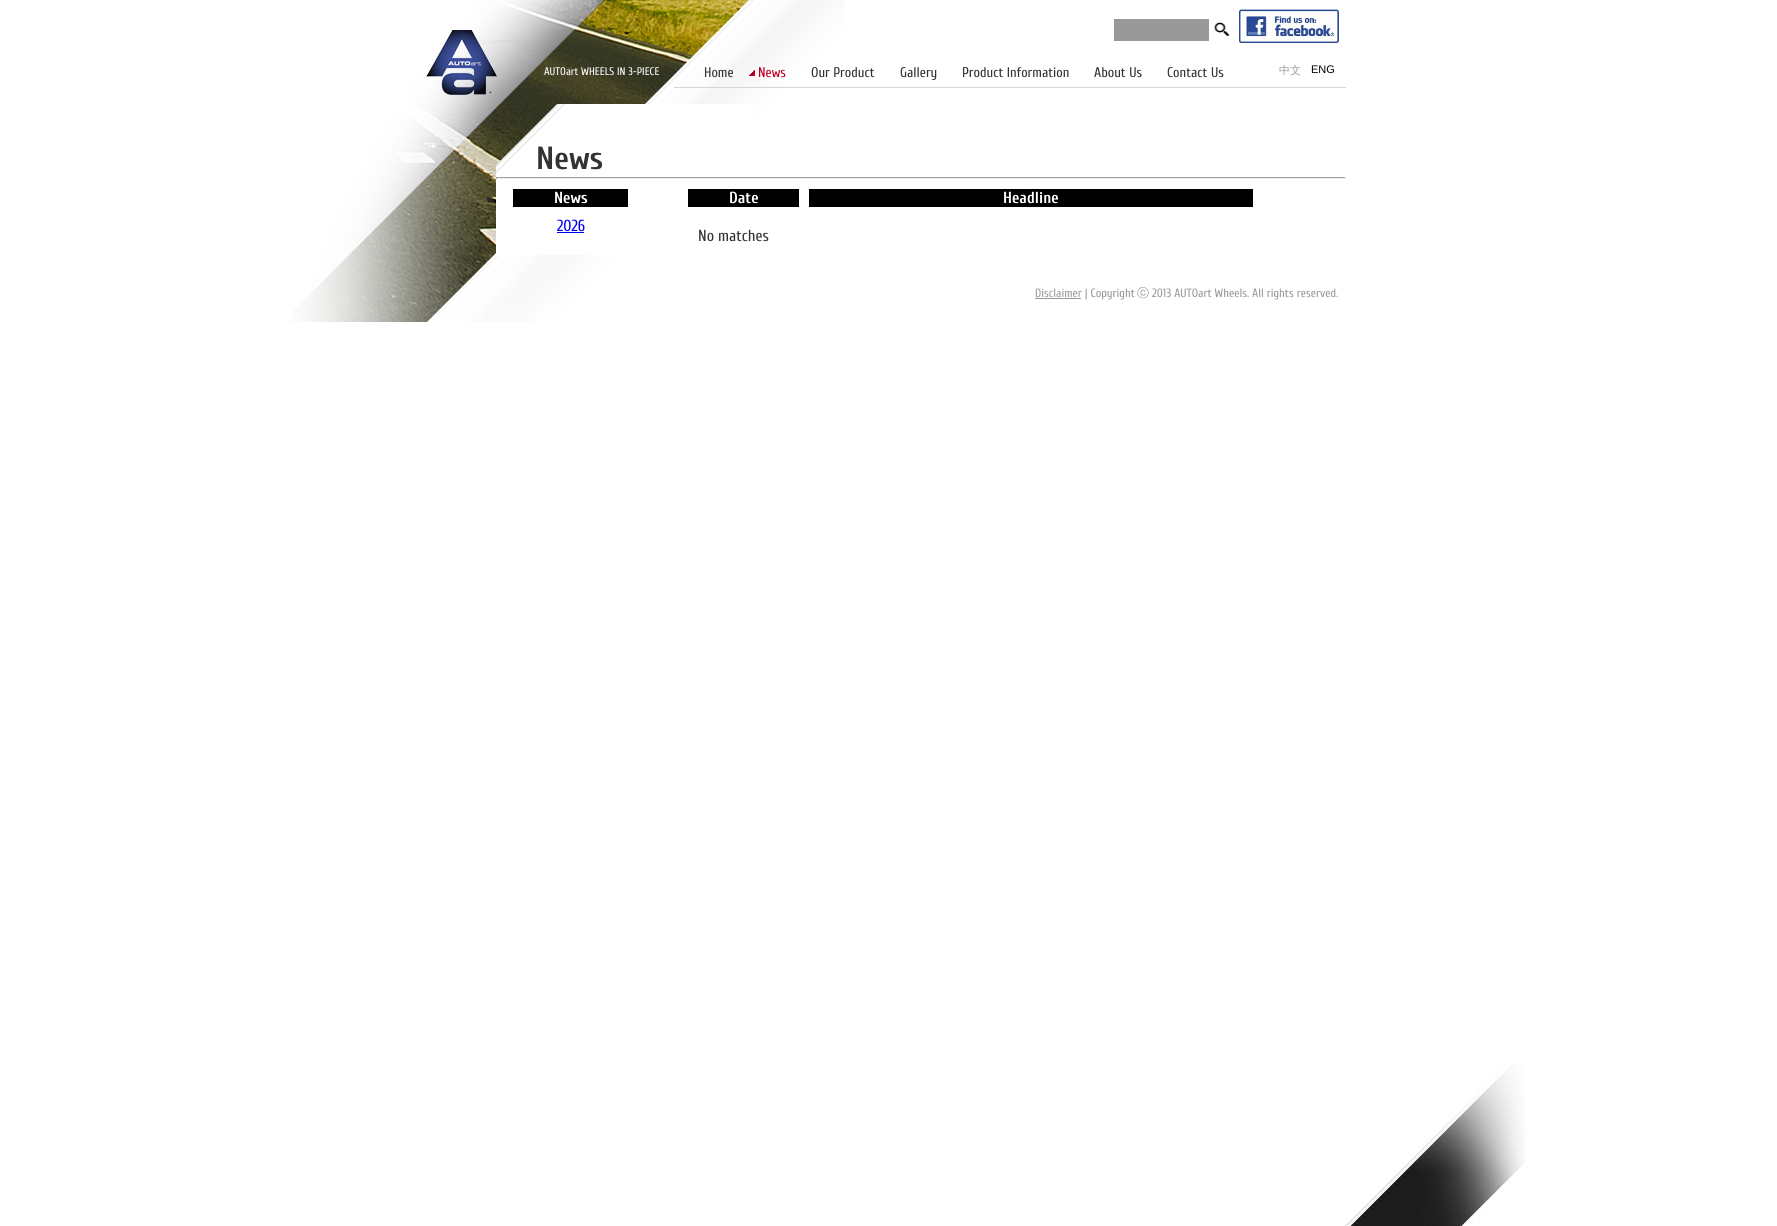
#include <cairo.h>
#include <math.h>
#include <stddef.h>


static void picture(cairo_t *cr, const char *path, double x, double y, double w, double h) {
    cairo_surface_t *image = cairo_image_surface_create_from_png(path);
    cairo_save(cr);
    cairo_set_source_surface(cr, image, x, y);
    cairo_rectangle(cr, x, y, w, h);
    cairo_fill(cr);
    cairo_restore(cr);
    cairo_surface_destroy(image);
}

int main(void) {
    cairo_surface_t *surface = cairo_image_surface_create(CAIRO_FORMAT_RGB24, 1777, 1226);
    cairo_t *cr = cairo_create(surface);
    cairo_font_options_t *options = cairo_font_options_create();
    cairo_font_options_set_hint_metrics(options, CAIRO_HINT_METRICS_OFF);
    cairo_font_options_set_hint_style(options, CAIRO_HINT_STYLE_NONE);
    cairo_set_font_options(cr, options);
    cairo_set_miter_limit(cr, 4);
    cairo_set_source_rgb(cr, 1, 1, 1);
    cairo_paint(cr);
    picture(cr, "img1.png", 1345, 1064, 181, 162);
    picture(cr, "img2.png", 292, 0, 553, 322);
    picture(cr, "img3.png", 426, 30, 71, 65);
    cairo_select_font_face(cr, "Cuprum", CAIRO_FONT_SLANT_NORMAL, CAIRO_FONT_WEIGHT_NORMAL);
    cairo_set_font_size(cr, 11);
    cairo_set_source_rgb(cr, 1, 1, 1);
    cairo_move_to(cr, 544, 75);
    cairo_show_text(cr, "AUTOart WHEELS IN 3-PIECE");
    cairo_set_source_rgb(cr, 0.835, 0.835, 0.835);
    cairo_rectangle(cr, 674, 87, 672, 1);
    cairo_fill(cr);
    cairo_set_source_rgb(cr, 0.6, 0.6, 0.6);
    cairo_rectangle(cr, 1114, 19, 95, 22);
    cairo_fill(cr);
    picture(cr, "img4.png", 1214, 22, 15, 14);
    picture(cr, "img5.png", 1239, 9, 100, 34);
    cairo_set_font_size(cr, 14);
    cairo_set_source_rgb(cr, 0.2, 0.2, 0.2);
    cairo_move_to(cr, 704, 77);
    cairo_show_text(cr, "Home");
    picture(cr, "img6.png", 749, 70, 6, 6);
    cairo_set_source_rgb(cr, 0.733, 0, 0.153);
    cairo_move_to(cr, 758, 77);
    cairo_show_text(cr, "News");
    cairo_set_source_rgb(cr, 0.2, 0.2, 0.2);
    cairo_move_to(cr, 811, 77);
    cairo_show_text(cr, "Our Product");
    cairo_move_to(cr, 900, 77);
    cairo_show_text(cr, "Gallery");
    cairo_move_to(cr, 962, 77);
    cairo_show_text(cr, "Product Information");
    cairo_move_to(cr, 1094, 77);
    cairo_show_text(cr, "About Us");
    cairo_move_to(cr, 1167, 77);
    cairo_show_text(cr, "Contact Us");
    cairo_select_font_face(cr, "WenQuanYi Zen Hei Medium", CAIRO_FONT_SLANT_NORMAL, CAIRO_FONT_WEIGHT_NORMAL);
    cairo_set_font_size(cr, 11);
    cairo_set_source_rgb(cr, 0.6, 0.6, 0.6);
    cairo_move_to(cr, 1279, 74);
    cairo_show_text(cr, "中文");
    cairo_select_font_face(cr, "Liberation Sans", CAIRO_FONT_SLANT_NORMAL, CAIRO_FONT_WEIGHT_NORMAL);
    cairo_set_source_rgb(cr, 0, 0, 0);
    cairo_move_to(cr, 1311, 73);
    cairo_show_text(cr, "ENG");
    cairo_set_source_rgb(cr, 1, 1, 1);
    cairo_rectangle(cr, 496, 104, 255, 151);
    cairo_fill(cr);
    picture(cr, "img7.png", 496, 104, 69, 69);
    cairo_select_font_face(cr, "Cuprum", CAIRO_FONT_SLANT_NORMAL, CAIRO_FONT_WEIGHT_BOLD);
    cairo_set_font_size(cr, 32);
    cairo_set_source_rgb(cr, 0.2, 0.2, 0.2);
    cairo_move_to(cr, 536, 169);
    cairo_show_text(cr, "News");
    cairo_set_source_rgb(cr, 0.624, 0.624, 0.624);
    cairo_rectangle(cr, 496, 177, 850, 1);
    cairo_fill(cr);
    cairo_set_source_rgb(cr, 0.933, 0.933, 0.933);
    cairo_rectangle(cr, 1345, 177, 1, 2);
    cairo_fill(cr);
    cairo_rectangle(cr, 496, 178, 850, 1);
    cairo_fill(cr);
    cairo_set_source_rgb(cr, 0.624, 0.624, 0.624);
    cairo_rectangle(cr, 496, 177, 1, 2);
    cairo_fill(cr);
    cairo_set_source_rgb(cr, 0, 0, 0);
    cairo_rectangle(cr, 513, 189, 115, 18);
    cairo_fill(cr);
    cairo_set_font_size(cr, 16);
    cairo_set_source_rgb(cr, 1, 1, 1);
    cairo_move_to(cr, 554, 203);
    cairo_show_text(cr, "News");
    cairo_select_font_face(cr, "Cuprum", CAIRO_FONT_SLANT_NORMAL, CAIRO_FONT_WEIGHT_NORMAL);
    cairo_set_source_rgb(cr, 0, 0, 0.933);
    cairo_move_to(cr, 557, 231);
    cairo_show_text(cr, "2026");
    cairo_rectangle(cr, 557, 232, 27, 1);
    cairo_fill(cr);
    cairo_set_source_rgb(cr, 0, 0, 0);
    cairo_rectangle(cr, 688, 189, 111, 18);
    cairo_fill(cr);
    cairo_select_font_face(cr, "Cuprum", CAIRO_FONT_SLANT_NORMAL, CAIRO_FONT_WEIGHT_BOLD);
    cairo_set_source_rgb(cr, 1, 1, 1);
    cairo_move_to(cr, 729, 203);
    cairo_show_text(cr, "Date");
    cairo_set_source_rgb(cr, 0, 0, 0);
    cairo_rectangle(cr, 809, 189, 444, 18);
    cairo_fill(cr);
    cairo_set_source_rgb(cr, 1, 1, 1);
    cairo_move_to(cr, 1003, 203);
    cairo_show_text(cr, "Headline");
    cairo_select_font_face(cr, "Cuprum", CAIRO_FONT_SLANT_NORMAL, CAIRO_FONT_WEIGHT_NORMAL);
    cairo_set_source_rgb(cr, 0.2, 0.2, 0.2);
    cairo_move_to(cr, 698, 241);
    cairo_show_text(cr, "No matches");
    cairo_set_source_rgb(cr, 0.6, 0.6, 0.6);
    cairo_rectangle(cr, 1035, 298, 46, 1);
    cairo_fill(cr);
    cairo_set_font_size(cr, 12);
    cairo_move_to(cr, 1035, 297);
    cairo_show_text(cr, "Disclaimer | Copyright");
    cairo_select_font_face(cr, "WenQuanYi Zen Hei Medium", CAIRO_FONT_SLANT_NORMAL, CAIRO_FONT_WEIGHT_NORMAL);
    cairo_move_to(cr, 1137, 297);
    cairo_show_text(cr, "ⓒ");
    cairo_select_font_face(cr, "Cuprum", CAIRO_FONT_SLANT_NORMAL, CAIRO_FONT_WEIGHT_NORMAL);
    cairo_move_to(cr, 1152, 297);
    cairo_show_text(cr, "2013 AUTOart Wheels. All rights reserved.");
    cairo_surface_write_to_png(surface, "page.png");
    cairo_font_options_destroy(options);
    cairo_destroy(cr);
    cairo_surface_destroy(surface);
    return 0;
}
